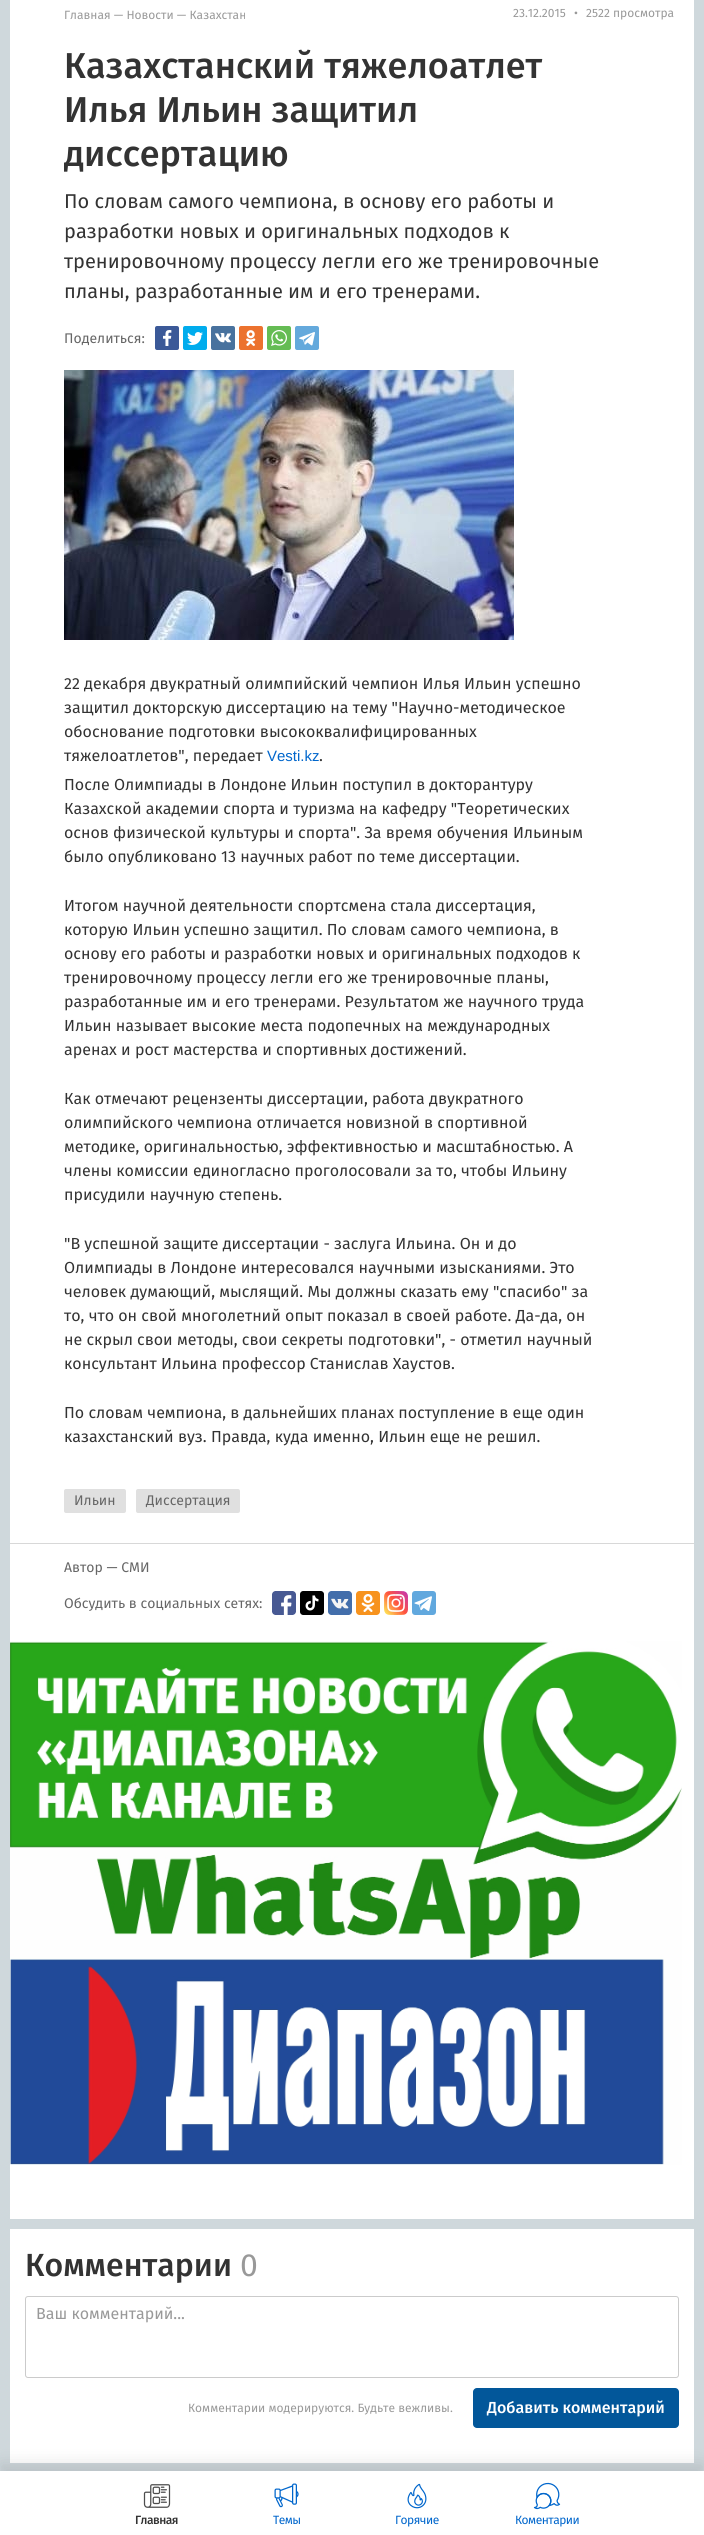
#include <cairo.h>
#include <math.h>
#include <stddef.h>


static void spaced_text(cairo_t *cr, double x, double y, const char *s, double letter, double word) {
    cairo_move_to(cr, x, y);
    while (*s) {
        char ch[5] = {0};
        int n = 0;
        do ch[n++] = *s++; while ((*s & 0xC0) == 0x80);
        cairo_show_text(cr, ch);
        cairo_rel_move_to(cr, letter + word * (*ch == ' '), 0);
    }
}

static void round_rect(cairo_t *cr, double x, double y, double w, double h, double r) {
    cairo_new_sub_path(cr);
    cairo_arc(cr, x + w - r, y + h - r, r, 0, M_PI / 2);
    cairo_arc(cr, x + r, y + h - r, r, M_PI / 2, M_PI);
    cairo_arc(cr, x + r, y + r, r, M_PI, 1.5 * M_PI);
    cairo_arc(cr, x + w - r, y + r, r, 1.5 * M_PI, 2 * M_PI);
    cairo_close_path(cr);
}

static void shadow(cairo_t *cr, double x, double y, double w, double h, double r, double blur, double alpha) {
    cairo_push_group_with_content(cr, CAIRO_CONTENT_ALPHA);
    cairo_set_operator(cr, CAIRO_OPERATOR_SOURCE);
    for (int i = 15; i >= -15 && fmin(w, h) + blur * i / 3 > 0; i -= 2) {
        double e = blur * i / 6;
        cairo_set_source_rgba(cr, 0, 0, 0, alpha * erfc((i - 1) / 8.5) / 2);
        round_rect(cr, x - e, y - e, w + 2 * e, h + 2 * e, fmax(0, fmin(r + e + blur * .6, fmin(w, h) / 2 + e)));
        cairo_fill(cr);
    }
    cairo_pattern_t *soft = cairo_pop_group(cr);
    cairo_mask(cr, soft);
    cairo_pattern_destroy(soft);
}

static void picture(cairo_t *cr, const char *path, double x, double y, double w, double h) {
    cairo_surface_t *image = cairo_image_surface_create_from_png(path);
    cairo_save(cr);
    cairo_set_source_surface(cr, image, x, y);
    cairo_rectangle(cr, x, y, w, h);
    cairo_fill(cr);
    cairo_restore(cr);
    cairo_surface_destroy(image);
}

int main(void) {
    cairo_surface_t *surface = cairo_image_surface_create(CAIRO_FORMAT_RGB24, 704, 2535);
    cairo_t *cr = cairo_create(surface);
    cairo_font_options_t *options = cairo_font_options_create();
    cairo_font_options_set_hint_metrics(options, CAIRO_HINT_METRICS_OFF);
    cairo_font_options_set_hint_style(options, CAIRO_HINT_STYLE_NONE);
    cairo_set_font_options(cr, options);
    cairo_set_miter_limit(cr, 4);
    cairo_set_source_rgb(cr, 0.812, 0.847, 0.863);
    cairo_paint(cr);
    cairo_set_source_rgb(cr, 1, 1, 1);
    cairo_rectangle(cr, 10, 0, 684, 2219);
    cairo_fill(cr);
    cairo_select_font_face(cr, "Fira Sans", CAIRO_FONT_SLANT_NORMAL, CAIRO_FONT_WEIGHT_NORMAL);
    cairo_set_font_size(cr, 12);
    cairo_set_source_rgb(cr, 0.6, 0.6, 0.6);
    cairo_move_to(cr, 64, 19);
    cairo_show_text(cr, "Главная — Новости — Казахстан");
    cairo_move_to(cr, 513, 17);
    cairo_show_text(cr, "23.12.2015");
    cairo_move_to(cr, 574, 17);
    cairo_show_text(cr, "•");
    cairo_move_to(cr, 586, 17);
    cairo_show_text(cr, "2522 просмотра");
    cairo_select_font_face(cr, "Fira Sans Medium", CAIRO_FONT_SLANT_NORMAL, CAIRO_FONT_WEIGHT_NORMAL);
    cairo_set_font_size(cr, 36);
    cairo_set_source_rgb(cr, 0.2, 0.2, 0.2);
    cairo_move_to(cr, 64, 78);
    cairo_show_text(cr, "Казахстанский тяжелоатлет");
    cairo_move_to(cr, 64, 122);
    cairo_show_text(cr, "Илья Ильин защитил");
    cairo_move_to(cr, 64, 166);
    cairo_show_text(cr, "диссертацию");
    cairo_select_font_face(cr, "Fira Sans", CAIRO_FONT_SLANT_NORMAL, CAIRO_FONT_WEIGHT_NORMAL);
    cairo_set_font_size(cr, 20);
    cairo_move_to(cr, 64, 208);
    cairo_show_text(cr, "По словам самого чемпиона, в основу его работы и");
    cairo_move_to(cr, 64, 238);
    cairo_show_text(cr, "разработки новых и оригинальных подходов к");
    cairo_move_to(cr, 64, 268);
    cairo_show_text(cr, "тренировочному процессу легли его же тренировочные");
    cairo_move_to(cr, 64, 298);
    cairo_show_text(cr, "планы, разработанные им и его тренерами.");
    cairo_set_font_size(cr, 14);
    cairo_set_source_rgb(cr, 0.4, 0.4, 0.4);
    cairo_move_to(cr, 64, 343);
    cairo_show_text(cr, "Поделиться:");
    cairo_set_source_rgb(cr, 0.231, 0.349, 0.596);
    round_rect(cr, 155, 326, 24, 24, 2);
    cairo_fill(cr);
    picture(cr, "img1.png", 163, 330, 9, 16);
    cairo_set_source_rgb(cr, 0, 0.675, 0.929);
    round_rect(cr, 183, 326, 24, 24, 2);
    cairo_fill(cr);
    picture(cr, "img2.png", 187, 332, 16, 13);
    cairo_set_source_rgb(cr, 0.282, 0.447, 0.62);
    round_rect(cr, 211, 326, 24, 24, 2);
    cairo_fill(cr);
    picture(cr, "img3.png", 215, 333, 16, 10);
    cairo_set_source_rgb(cr, 0.922, 0.447, 0.18);
    round_rect(cr, 239, 326, 24, 24, 2);
    cairo_fill(cr);
    picture(cr, "img4.png", 246, 330, 10, 16);
    cairo_set_source_rgb(cr, 0.396, 0.737, 0.329);
    round_rect(cr, 267, 326, 24, 24, 2);
    cairo_fill(cr);
    picture(cr, "img5.png", 271, 330, 16, 16);
    cairo_set_source_rgb(cr, 0.392, 0.663, 0.863);
    round_rect(cr, 295, 326, 24, 24, 2);
    cairo_fill(cr);
    picture(cr, "img6.png", 299, 332, 16, 14);
    picture(cr, "img7.png", 64, 370, 450, 270);
    cairo_set_font_size(cr, 16);
    cairo_set_source_rgb(cr, 0.2, 0.2, 0.2);
    cairo_move_to(cr, 64, 689);
    cairo_show_text(cr, "22 декабря двукратный олимпийский чемпион Илья Ильин успешно");
    cairo_move_to(cr, 64, 713);
    cairo_show_text(cr, "защитил докторскую диссертацию на тему \"Научно-методическое");
    cairo_move_to(cr, 64, 737);
    cairo_show_text(cr, "обоснование подготовки высококвалифицированных");
    cairo_move_to(cr, 64, 761);
    cairo_show_text(cr, "тяжелоатлетов\", передает");
    cairo_select_font_face(cr, "Liberation Sans", CAIRO_FONT_SLANT_NORMAL, CAIRO_FONT_WEIGHT_NORMAL);
    cairo_set_font_size(cr, 15);
    cairo_set_source_rgb(cr, 0, 0.4, 0.8);
    cairo_move_to(cr, 267, 761);
    cairo_show_text(cr, "Vesti.kz");
    cairo_select_font_face(cr, "Fira Sans", CAIRO_FONT_SLANT_NORMAL, CAIRO_FONT_WEIGHT_NORMAL);
    cairo_set_font_size(cr, 16);
    cairo_set_source_rgb(cr, 0.2, 0.2, 0.2);
    cairo_move_to(cr, 319, 761);
    cairo_show_text(cr, ".");
    cairo_move_to(cr, 64, 790);
    cairo_show_text(cr, "После Олимпиады в Лондоне Ильин поступил в докторантуру");
    cairo_move_to(cr, 64, 814);
    cairo_show_text(cr, "Казахской академии спорта и туризма на кафедру \"Теоретических");
    cairo_move_to(cr, 64, 838);
    cairo_show_text(cr, "основ физической культуры и спорта\". За время обучения Ильиным");
    cairo_move_to(cr, 64, 862);
    cairo_show_text(cr, "было опубликовано 13 научных работ по теме диссертации.");
    cairo_move_to(cr, 64, 911);
    cairo_show_text(cr, "Итогом научной деятельности спортсмена стала диссертация,");
    cairo_move_to(cr, 64, 935);
    cairo_show_text(cr, "которую Ильин успешно защитил. По словам самого чемпиона, в");
    cairo_move_to(cr, 64, 959);
    cairo_show_text(cr, "основу его работы и разработки новых и оригинальных подходов к");
    cairo_move_to(cr, 64, 983);
    cairo_show_text(cr, "тренировочному процессу легли его же тренировочные планы,");
    cairo_move_to(cr, 64, 1007);
    cairo_show_text(cr, "разработанные им и его тренерами. Результатом же научного труда");
    cairo_move_to(cr, 64, 1031);
    cairo_show_text(cr, "Ильин называет высокие места подопечных на международных");
    cairo_move_to(cr, 64, 1055);
    cairo_show_text(cr, "аренах и рост мастерства и спортивных достижений.");
    cairo_move_to(cr, 64, 1104);
    cairo_show_text(cr, "Как отмечают рецензенты диссертации, работа двукратного");
    cairo_move_to(cr, 64, 1128);
    cairo_show_text(cr, "олимпийского чемпиона отличается новизной в спортивной");
    cairo_move_to(cr, 64, 1152);
    cairo_show_text(cr, "методике, оригинальностью, эффективностью и масштабностью. А");
    cairo_move_to(cr, 64, 1176);
    cairo_show_text(cr, "члены комиссии единогласно проголосовали за то, чтобы Ильину");
    cairo_move_to(cr, 64, 1200);
    cairo_show_text(cr, "присудили научную степень.");
    cairo_move_to(cr, 64, 1249);
    cairo_show_text(cr, "\"В успешной защите диссертации - заслуга Ильина. Он и до");
    cairo_move_to(cr, 64, 1273);
    cairo_show_text(cr, "Олимпиады в Лондоне интересовался научными изысканиями. Это");
    cairo_move_to(cr, 64, 1297);
    cairo_show_text(cr, "человек думающий, мыслящий. Мы должны сказать ему \"спасибо\" за");
    cairo_move_to(cr, 64, 1321);
    cairo_show_text(cr, "то, что он свой многолетний опыт показал в своей работе. Да-да, он");
    cairo_move_to(cr, 64, 1345);
    cairo_show_text(cr, "не скрыл свои методы, свои секреты подготовки\", - отметил научный");
    cairo_move_to(cr, 64, 1369);
    cairo_show_text(cr, "консультант Ильина профессор Станислав Хаустов.");
    cairo_move_to(cr, 64, 1418);
    cairo_show_text(cr, "По словам чемпиона, в дальнейших планах поступление в еще один");
    cairo_move_to(cr, 64, 1442);
    cairo_show_text(cr, "казахстанский вуз. Правда, куда именно, Ильин еще не решил.");
    cairo_set_source_rgb(cr, 0.878, 0.878, 0.878);
    round_rect(cr, 64, 1489, 62, 24, 2);
    cairo_fill(cr);
    cairo_set_font_size(cr, 14);
    cairo_set_source_rgb(cr, 0.4, 0.4, 0.4);
    cairo_move_to(cr, 74, 1505);
    cairo_show_text(cr, "Ильин");
    cairo_set_source_rgb(cr, 0.878, 0.878, 0.878);
    round_rect(cr, 136, 1489, 104, 24, 2);
    cairo_fill(cr);
    cairo_set_source_rgb(cr, 0.4, 0.4, 0.4);
    cairo_move_to(cr, 146, 1505);
    cairo_show_text(cr, "Диссертация");
    cairo_set_source_rgb(cr, 0.847, 0.847, 0.847);
    cairo_rectangle(cr, 10, 1543, 684, 1);
    cairo_fill(cr);
    cairo_set_source_rgb(cr, 0.4, 0.4, 0.4);
    cairo_move_to(cr, 64, 1572);
    cairo_show_text(cr, "Автор — СМИ");
    cairo_move_to(cr, 64, 1608);
    cairo_show_text(cr, "Обсудить в социальных сетях:");
    picture(cr, "img8.png", 272, 1591, 24, 24);
    picture(cr, "img9.png", 300, 1591, 24, 24);
    picture(cr, "img10.png", 328, 1591, 24, 24);
    picture(cr, "img11.png", 356, 1591, 24, 24);
    picture(cr, "img12.png", 384, 1591, 24, 24);
    picture(cr, "img13.png", 412, 1591, 24, 24);
    picture(cr, "img14.png", 10, 1641, 672, 524);
    cairo_set_source_rgb(cr, 1, 1, 1);
    cairo_rectangle(cr, 10, 2229, 684, 234);
    cairo_fill(cr);
    cairo_select_font_face(cr, "Fira Sans Medium", CAIRO_FONT_SLANT_NORMAL, CAIRO_FONT_WEIGHT_NORMAL);
    cairo_set_font_size(cr, 32);
    cairo_set_source_rgb(cr, 0.2, 0.2, 0.2);
    cairo_move_to(cr, 25, 2276);
    cairo_show_text(cr, "Комментарии");
    cairo_select_font_face(cr, "Fira Sans", CAIRO_FONT_SLANT_NORMAL, CAIRO_FONT_WEIGHT_NORMAL);
    cairo_set_source_rgb(cr, 0.6, 0.6, 0.6);
    cairo_move_to(cr, 240, 2276);
    cairo_show_text(cr, "0");
    round_rect(cr, 25.5, 2296.5, 653, 81, 2.5);
    cairo_set_source_rgb(cr, 0.796, 0.796, 0.796);
    cairo_set_line_width(cr, 1);
    cairo_stroke(cr);
    cairo_set_font_size(cr, 16);
    cairo_set_source_rgb(cr, 0.6, 0.6, 0.6);
    cairo_move_to(cr, 36, 2319);
    cairo_show_text(cr, "Ваш комментарий...");
    cairo_set_font_size(cr, 12);
    cairo_move_to(cr, 188, 2412);
    cairo_show_text(cr, "Комментарии модерируются. Будьте вежливы.");
    cairo_set_source_rgb(cr, 0.008, 0.341, 0.604);
    round_rect(cr, 473, 2388, 206, 40, 4);
    cairo_fill(cr);
    cairo_select_font_face(cr, "Fira Sans Medium", CAIRO_FONT_SLANT_NORMAL, CAIRO_FONT_WEIGHT_NORMAL);
    cairo_set_font_size(cr, 16);
    cairo_set_source_rgb(cr, 1, 1, 1);
    cairo_move_to(cr, 487, 2413);
    cairo_show_text(cr, "Добавить комментарий");
    cairo_set_source_rgb(cr, 0, 0, 0);
    shadow(cr, 0, 2463, 704, 64, 0, 7.5, 0.1);
    cairo_set_source_rgb(cr, 1, 1, 1);
    cairo_rectangle(cr, 0, 2471, 704, 64);
    cairo_fill(cr);
    picture(cr, "img15.png", 143, 2484, 28, 24);
    cairo_set_font_size(cr, 12);
    cairo_set_source_rgb(cr, 0.2, 0.2, 0.2);
    spaced_text(cr, 135, 2524, "Главная", -0.5, 0);
    picture(cr, "img16.png", 274, 2483, 25, 25);
    cairo_select_font_face(cr, "Fira Sans", CAIRO_FONT_SLANT_NORMAL, CAIRO_FONT_WEIGHT_NORMAL);
    cairo_set_source_rgb(cr, 0, 0.4, 0.8);
    spaced_text(cr, 273, 2524, "Темы", -0.5, 0);
    picture(cr, "img17.png", 407, 2483, 20, 26);
    spaced_text(cr, 395, 2524, "Горячие", -0.5, 0);
    picture(cr, "img18.png", 533, 2482, 28, 28);
    spaced_text(cr, 515, 2524, "Коментарии", -0.5, 0);
    cairo_surface_write_to_png(surface, "page.png");
    cairo_font_options_destroy(options);
    cairo_destroy(cr);
    cairo_surface_destroy(surface);
    return 0;
}
